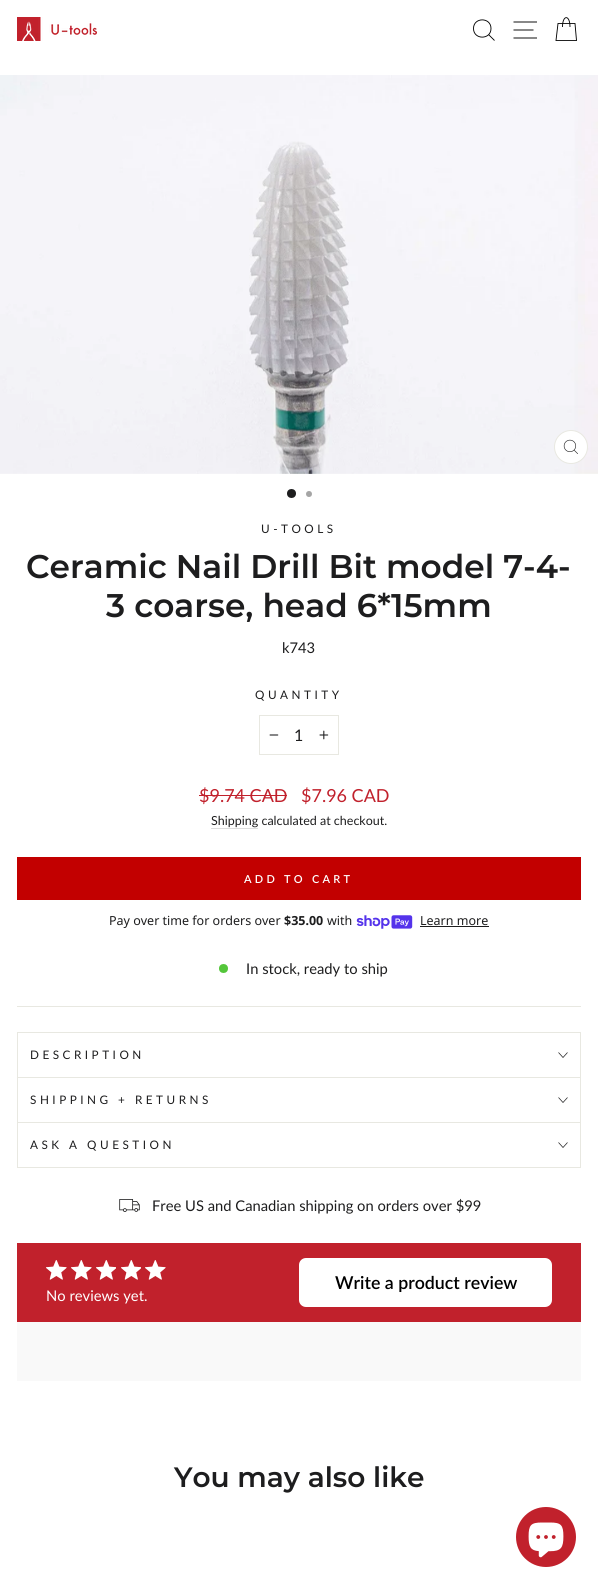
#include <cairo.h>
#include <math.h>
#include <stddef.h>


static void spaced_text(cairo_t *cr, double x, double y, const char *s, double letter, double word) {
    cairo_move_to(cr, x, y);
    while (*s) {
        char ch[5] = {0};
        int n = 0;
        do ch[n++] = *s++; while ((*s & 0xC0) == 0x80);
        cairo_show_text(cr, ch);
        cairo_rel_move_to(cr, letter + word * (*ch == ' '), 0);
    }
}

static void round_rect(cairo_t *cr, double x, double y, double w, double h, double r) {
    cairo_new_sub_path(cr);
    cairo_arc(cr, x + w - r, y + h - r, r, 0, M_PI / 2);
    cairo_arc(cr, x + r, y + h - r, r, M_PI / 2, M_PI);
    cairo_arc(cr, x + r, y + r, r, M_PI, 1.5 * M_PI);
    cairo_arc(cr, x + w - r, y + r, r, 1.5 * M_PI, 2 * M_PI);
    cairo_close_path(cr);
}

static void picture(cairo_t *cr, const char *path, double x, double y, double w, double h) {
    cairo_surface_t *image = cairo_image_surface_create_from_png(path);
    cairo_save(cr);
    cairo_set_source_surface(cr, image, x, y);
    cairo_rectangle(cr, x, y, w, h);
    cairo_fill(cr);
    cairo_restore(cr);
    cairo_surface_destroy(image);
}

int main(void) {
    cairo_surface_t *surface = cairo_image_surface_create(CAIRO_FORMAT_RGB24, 598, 1588);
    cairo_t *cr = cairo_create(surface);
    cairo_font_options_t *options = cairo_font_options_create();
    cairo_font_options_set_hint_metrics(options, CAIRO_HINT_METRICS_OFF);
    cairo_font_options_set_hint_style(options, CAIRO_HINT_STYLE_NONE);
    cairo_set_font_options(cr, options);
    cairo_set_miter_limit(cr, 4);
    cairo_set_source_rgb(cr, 1, 1, 1);
    cairo_paint(cr);
    picture(cr, "img1.png", 17, 17, 80, 24);
    cairo_new_path(cr);
    cairo_move_to(cr, 491, 28.5);
    cairo_curve_to(cr, 491, 40, 473.5, 40, 473.5, 28.5);
    cairo_curve_to(cr, 473.5, 17, 491, 17, 491, 28.5);
    cairo_close_path(cr);
    cairo_move_to(cr, 494.5, 40.5);
    cairo_line_to(cr, 488.5, 34.5);
    cairo_set_source_rgb(cr, 0, 0, 0);
    cairo_set_line_width(cr, 0.9);
    cairo_stroke(cr);
    cairo_new_path(cr);
    cairo_move_to(cr, 513.5, 22);
    cairo_line_to(cr, 537, 22);
    cairo_move_to(cr, 513.5, 30);
    cairo_line_to(cr, 533.5, 30);
    cairo_move_to(cr, 513.5, 38);
    cairo_line_to(cr, 537, 38);
    cairo_move_to(cr, 562.5, 27);
    cairo_curve_to(cr, 562.5, 14.5, 570, 14.5, 570, 27);
    cairo_stroke(cr);
    cairo_new_path(cr);
    cairo_move_to(cr, 558, 23.5);
    cairo_line_to(cr, 575, 23.5);
    cairo_line_to(cr, 576.5, 40.5);
    cairo_line_to(cr, 556, 40.5);
    cairo_close_path(cr);
    cairo_stroke(cr);
    picture(cr, "img2.png", 0, 75, 598, 399);
    cairo_set_source_rgb(cr, 1, 1, 1);
    cairo_arc(cr, 571, 447, 16.5, 0, 2 * M_PI);
    cairo_fill_preserve(cr);
    cairo_set_source_rgb(cr, 0.91, 0.91, 0.882);
    cairo_set_line_width(cr, 1);
    cairo_stroke(cr);
    picture(cr, "img3.png", 563, 439, 15, 15);
    cairo_set_source_rgb(cr, 0.114, 0.114, 0.118);
    cairo_arc(cr, 291.5, 493.5, 4.5, 0, 2 * M_PI);
    cairo_fill(cr);
    cairo_set_source_rgb(cr, 0.647, 0.647, 0.647);
    cairo_arc(cr, 309, 494, 3, 0, 2 * M_PI);
    cairo_fill(cr);
    cairo_select_font_face(cr, "Lato", CAIRO_FONT_SLANT_NORMAL, CAIRO_FONT_WEIGHT_NORMAL);
    cairo_set_font_size(cr, 11.75);
    cairo_set_source_rgb(cr, 0.114, 0.114, 0.118);
    spaced_text(cr, 261, 533, "U-TOOLS", 3.5, 0);
    cairo_select_font_face(cr, "Montserrat SemiBold", CAIRO_FONT_SLANT_NORMAL, CAIRO_FONT_WEIGHT_NORMAL);
    cairo_set_font_size(cr, 32.8);
    cairo_move_to(cr, 26, 578);
    cairo_show_text(cr, "Ceramic Nail Drill Bit model 7-4-");
    cairo_move_to(cr, 106, 617);
    cairo_show_text(cr, "3 coarse, head 6*15mm");
    cairo_select_font_face(cr, "Lato", CAIRO_FONT_SLANT_NORMAL, CAIRO_FONT_WEIGHT_NORMAL);
    cairo_set_font_size(cr, 14.75);
    cairo_move_to(cr, 282, 653);
    cairo_show_text(cr, "k743");
    cairo_set_font_size(cr, 11.75);
    spaced_text(cr, 255, 699, "QUANTITY", 3.5, 0);
    cairo_rectangle(cr, 259.5, 715.5, 79, 39);
    cairo_set_source_rgb(cr, 0.91, 0.91, 0.882);
    cairo_stroke(cr);
    picture(cr, "img4.png", 269, 734, 10, 2);
    cairo_set_font_size(cr, 16);
    cairo_set_source_rgb(cr, 0.114, 0.114, 0.118);
    cairo_move_to(cr, 294, 741);
    cairo_show_text(cr, "1");
    picture(cr, "img5.png", 319, 730, 10, 10);
    cairo_set_font_size(cr, 18);
    cairo_set_source_rgb(cr, 0.757, 0.129, 0.173);
    cairo_move_to(cr, 199, 802);
    cairo_show_text(cr, "$9.74 CAD");
    cairo_rectangle(cr, 199, 795, 88, 1);
    cairo_fill(cr);
    cairo_move_to(cr, 301, 802);
    cairo_show_text(cr, "$7.96 CAD");
    cairo_set_font_size(cr, 12.5);
    cairo_set_source_rgb(cr, 0.114, 0.114, 0.118);
    cairo_move_to(cr, 211, 825);
    cairo_show_text(cr, "Shipping calculated at checkout.");
    cairo_set_source_rgb(cr, 0.867, 0.867, 0.867);
    cairo_rectangle(cr, 211, 828, 47, 1);
    cairo_fill(cr);
    cairo_set_source_rgb(cr, 0.761, 0, 0);
    cairo_rectangle(cr, 17, 857, 564, 43);
    cairo_fill(cr);
    cairo_select_font_face(cr, "Lato SemiBold", CAIRO_FONT_SLANT_NORMAL, CAIRO_FONT_WEIGHT_NORMAL);
    cairo_set_font_size(cr, 11);
    cairo_set_source_rgb(cr, 1, 1, 1);
    spaced_text(cr, 244, 883, "ADD TO CART", 3.25, 0);
    cairo_select_font_face(cr, "Noto Sans", CAIRO_FONT_SLANT_NORMAL, CAIRO_FONT_WEIGHT_NORMAL);
    cairo_set_font_size(cr, 12.5);
    cairo_set_source_rgb(cr, 0.114, 0.114, 0.118);
    cairo_move_to(cr, 109, 925);
    cairo_show_text(cr, "Pay over time for orders over");
    cairo_select_font_face(cr, "Noto Sans", CAIRO_FONT_SLANT_NORMAL, CAIRO_FONT_WEIGHT_BOLD);
    cairo_move_to(cr, 284, 925);
    cairo_show_text(cr, "$35.00");
    cairo_select_font_face(cr, "Noto Sans", CAIRO_FONT_SLANT_NORMAL, CAIRO_FONT_WEIGHT_NORMAL);
    cairo_move_to(cr, 327, 925);
    cairo_show_text(cr, "with");
    picture(cr, "img6.png", 356, 915, 57, 14);
    cairo_move_to(cr, 420, 925);
    cairo_show_text(cr, "Learn more");
    cairo_rectangle(cr, 420, 926, 69, 1);
    cairo_fill(cr);
    cairo_set_source_rgb(cr, 0.329, 0.776, 0.227);
    cairo_arc(cr, 223.5, 968.5, 4.5, 0, 2 * M_PI);
    cairo_fill(cr);
    cairo_select_font_face(cr, "Lato", CAIRO_FONT_SLANT_NORMAL, CAIRO_FONT_WEIGHT_NORMAL);
    cairo_set_font_size(cr, 14.75);
    cairo_set_source_rgb(cr, 0.114, 0.114, 0.118);
    cairo_move_to(cr, 246, 974);
    cairo_show_text(cr, "In stock, ready to ship");
    cairo_set_source_rgb(cr, 0.91, 0.91, 0.882);
    cairo_rectangle(cr, 17, 1006, 564, 1);
    cairo_fill(cr);
    cairo_rectangle(cr, 17, 1077, 564, 1);
    cairo_fill(cr);
    cairo_rectangle(cr, 17, 1032, 564, 1);
    cairo_fill(cr);
    cairo_rectangle(cr, 580, 1032, 1, 45);
    cairo_fill(cr);
    cairo_rectangle(cr, 17, 1032, 1, 45);
    cairo_fill(cr);
    cairo_set_font_size(cr, 11.75);
    cairo_set_source_rgb(cr, 0.114, 0.114, 0.118);
    spaced_text(cr, 30, 1059, "DESCRIPTION", 3.5, 0);
    cairo_new_path(cr);
    cairo_move_to(cr, 558.5, 1052.5);
    cairo_line_to(cr, 563, 1057.5);
    cairo_line_to(cr, 567.5, 1052.5);
    cairo_set_line_width(cr, 0.7);
    cairo_stroke(cr);
    cairo_set_source_rgb(cr, 0.91, 0.91, 0.882);
    cairo_rectangle(cr, 17, 1122, 564, 1);
    cairo_fill(cr);
    cairo_rectangle(cr, 580, 1078, 1, 44);
    cairo_fill(cr);
    cairo_rectangle(cr, 17, 1078, 1, 44);
    cairo_fill(cr);
    cairo_set_source_rgb(cr, 0.114, 0.114, 0.118);
    spaced_text(cr, 30, 1104, "SHIPPING + RETURNS", 3.5, 0);
    cairo_new_path(cr);
    cairo_move_to(cr, 558.5, 1097.5);
    cairo_line_to(cr, 563, 1102.5);
    cairo_line_to(cr, 567.5, 1097.5);
    cairo_stroke(cr);
    cairo_set_source_rgb(cr, 0.91, 0.91, 0.882);
    cairo_rectangle(cr, 17, 1167, 564, 1);
    cairo_fill(cr);
    cairo_rectangle(cr, 580, 1123, 1, 44);
    cairo_fill(cr);
    cairo_rectangle(cr, 17, 1123, 1, 44);
    cairo_fill(cr);
    cairo_set_source_rgb(cr, 0.114, 0.114, 0.118);
    spaced_text(cr, 30, 1149, "ASK A QUESTION", 3.5, 0);
    cairo_new_path(cr);
    cairo_move_to(cr, 558.5, 1142.5);
    cairo_line_to(cr, 563, 1147.5);
    cairo_line_to(cr, 567.5, 1142.5);
    cairo_stroke(cr);
    picture(cr, "img7.png", 119, 1199, 21, 13);
    cairo_set_font_size(cr, 14.75);
    cairo_move_to(cr, 152, 1211);
    cairo_show_text(cr, "Free US and Canadian shipping on orders over $99");
    cairo_set_source_rgb(cr, 0.976, 0.976, 0.976);
    cairo_rectangle(cr, 17, 1322, 564, 59);
    cairo_fill(cr);
    cairo_set_source_rgb(cr, 0.757, 0.129, 0.173);
    cairo_rectangle(cr, 17, 1243, 564, 79);
    cairo_fill(cr);
    cairo_set_source_rgb(cr, 1, 1, 1);
    round_rect(cr, 299, 1258, 253, 49, 7);
    cairo_fill(cr);
    cairo_select_font_face(cr, "Lato SemiBold", CAIRO_FONT_SLANT_NORMAL, CAIRO_FONT_WEIGHT_NORMAL);
    cairo_set_font_size(cr, 17.75);
    cairo_set_source_rgb(cr, 0, 0, 0);
    cairo_move_to(cr, 335, 1289);
    cairo_show_text(cr, "Write a product review");
    picture(cr, "img8.png", 46, 1260, 21, 20);
    picture(cr, "img8.png", 71, 1260, 21, 20);
    picture(cr, "img9.png", 96, 1260, 20, 20);
    picture(cr, "img9.png", 121, 1260, 20, 20);
    picture(cr, "img8.png", 145, 1260, 21, 20);
    cairo_select_font_face(cr, "Lato", CAIRO_FONT_SLANT_NORMAL, CAIRO_FONT_WEIGHT_NORMAL);
    cairo_set_font_size(cr, 14.75);
    cairo_set_source_rgb(cr, 1, 1, 1);
    cairo_move_to(cr, 46, 1301);
    cairo_show_text(cr, "No reviews yet.");
    cairo_select_font_face(cr, "Montserrat SemiBold", CAIRO_FONT_SLANT_NORMAL, CAIRO_FONT_WEIGHT_NORMAL);
    cairo_set_font_size(cr, 28);
    cairo_set_source_rgb(cr, 0.114, 0.114, 0.118);
    cairo_move_to(cr, 174, 1487);
    cairo_show_text(cr, "You may also like");
    cairo_set_source_rgb(cr, 0.757, 0.129, 0.173);
    cairo_new_path(cr);
    cairo_arc(cr, 546, 1537, 30, 0, 2 * M_PI);
    cairo_fill(cr);
    picture(cr, "img10.png", 528, 1522, 36, 36);
    cairo_surface_write_to_png(surface, "page.png");
    cairo_font_options_destroy(options);
    cairo_destroy(cr);
    cairo_surface_destroy(surface);
    return 0;
}
